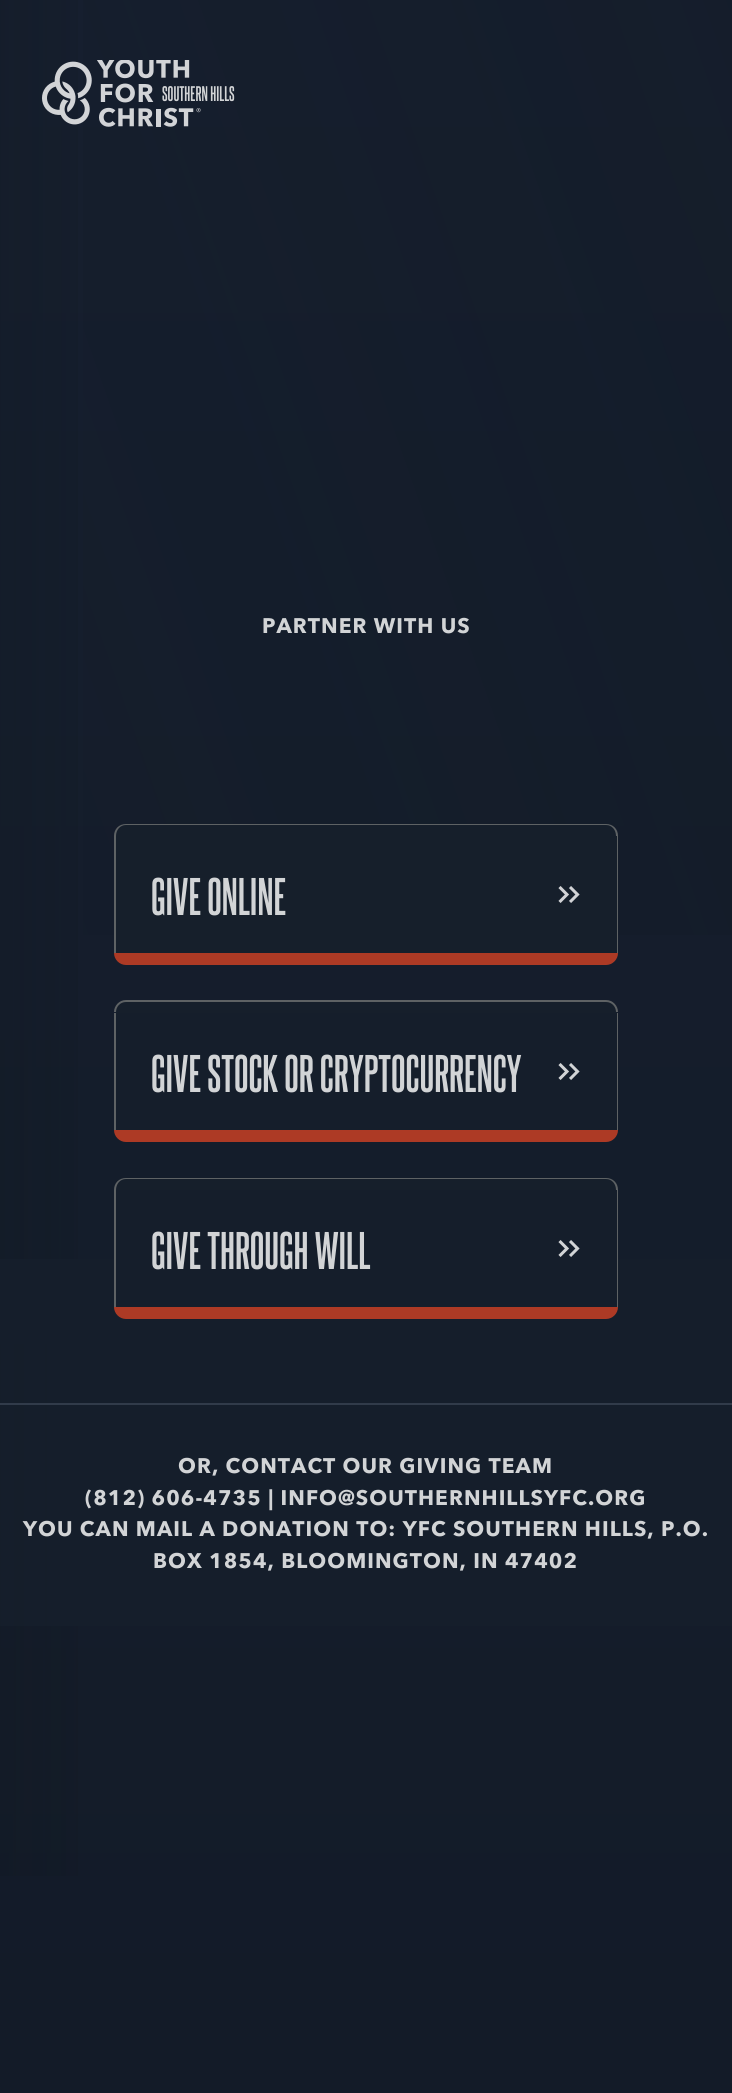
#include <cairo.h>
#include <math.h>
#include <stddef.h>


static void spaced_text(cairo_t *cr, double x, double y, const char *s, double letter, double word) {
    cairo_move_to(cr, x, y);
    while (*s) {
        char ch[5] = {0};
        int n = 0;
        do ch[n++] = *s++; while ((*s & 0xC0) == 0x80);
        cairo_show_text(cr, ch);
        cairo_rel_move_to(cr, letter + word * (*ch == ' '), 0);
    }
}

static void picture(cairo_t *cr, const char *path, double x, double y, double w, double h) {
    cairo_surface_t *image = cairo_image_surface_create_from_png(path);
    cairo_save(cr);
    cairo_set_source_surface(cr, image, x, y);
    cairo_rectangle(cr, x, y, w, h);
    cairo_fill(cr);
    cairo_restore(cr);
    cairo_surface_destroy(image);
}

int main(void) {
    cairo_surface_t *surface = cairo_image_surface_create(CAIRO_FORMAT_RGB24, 732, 2093);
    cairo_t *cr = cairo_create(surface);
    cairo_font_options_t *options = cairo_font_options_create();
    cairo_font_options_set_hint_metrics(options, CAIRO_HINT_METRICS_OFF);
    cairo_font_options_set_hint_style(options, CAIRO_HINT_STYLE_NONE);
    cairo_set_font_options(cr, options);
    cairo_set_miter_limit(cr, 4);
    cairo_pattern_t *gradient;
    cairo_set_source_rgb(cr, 1, 1, 1);
    cairo_paint(cr);
    gradient = cairo_pattern_create_linear(366, 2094, 366, 0);
    cairo_pattern_add_color_stop_rgba(gradient, 0, 0.075, 0.106, 0.157, 1);
    cairo_pattern_add_color_stop_rgba(gradient, 1, 0.086, 0.122, 0.184, 1);
    cairo_set_source(cr, gradient);
    cairo_pattern_destroy(gradient);
    cairo_rectangle(cr, 0, 0, 732, 2093);
    cairo_fill(cr);
    gradient = cairo_pattern_create_linear(0, 1047, 245, 1047);
    cairo_pattern_add_color_stop_rgba(gradient, 0, 0.063, 0.094, 0.125, 0.25);
    cairo_pattern_add_color_stop_rgba(gradient, 1, 0.063, 0.094, 0.125, 0);
    cairo_set_source(cr, gradient);
    cairo_pattern_destroy(gradient);
    cairo_rectangle(cr, 0, 0, 78, 1876);
    cairo_fill(cr);
    gradient = cairo_pattern_create_linear(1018, 819, -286, 1275);
    cairo_pattern_add_color_stop_rgba(gradient, 0, 0.063, 0.094, 0.125, 0.25);
    cairo_pattern_add_color_stop_rgba(gradient, 1, 0.063, 0.094, 0.125, 0);
    cairo_set_source(cr, gradient);
    cairo_pattern_destroy(gradient);
    cairo_rectangle(cr, 83, 0, 649, 935);
    cairo_fill(cr);
    picture(cr, "img1.png", 42, 60, 159, 67);
    cairo_select_font_face(cr, "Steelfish", CAIRO_FONT_SLANT_NORMAL, CAIRO_FONT_WEIGHT_BOLD);
    cairo_set_font_size(cr, 18);
    cairo_set_source_rgb(cr, 0.824, 0.831, 0.839);
    cairo_move_to(cr, 162, 101);
    cairo_show_text(cr, "SOUTHERN HILLS");
    cairo_select_font_face(cr, "Avenir Next", CAIRO_FONT_SLANT_NORMAL, CAIRO_FONT_WEIGHT_BOLD);
    cairo_set_font_size(cr, 21);
    spaced_text(cr, 262, 633, "PARTNER WITH US", 1.05, 0);
    cairo_set_source_rgb(cr, 0.086, 0.122, 0.169);
    cairo_new_path(cr);
    cairo_move_to(cr, 127, 825);
    cairo_line_to(cr, 606, 825);
    cairo_curve_to(cr, 612, 825, 617, 830, 617, 836);
    cairo_line_to(cr, 116, 836);
    cairo_curve_to(cr, 116, 830, 121, 825, 127, 825);
    cairo_close_path(cr);
    cairo_fill(cr);
    cairo_set_source_rgb(cr, 0.369, 0.384, 0.392);
    cairo_set_fill_rule(cr, CAIRO_FILL_RULE_EVEN_ODD);
    cairo_new_path(cr);
    cairo_move_to(cr, 126, 824);
    cairo_line_to(cr, 606, 824);
    cairo_curve_to(cr, 613, 824, 618, 829, 618, 836);
    cairo_line_to(cr, 114, 836);
    cairo_curve_to(cr, 114, 829, 119, 824, 126, 824);
    cairo_close_path(cr);
    cairo_move_to(cr, 126, 825);
    cairo_line_to(cr, 606, 825);
    cairo_curve_to(cr, 612, 825, 616, 830, 616, 836);
    cairo_line_to(cr, 116, 836);
    cairo_curve_to(cr, 116, 830, 120, 825, 126, 825);
    cairo_close_path(cr);
    cairo_fill(cr);
    cairo_set_source_rgb(cr, 0.086, 0.122, 0.169);
    cairo_rectangle(cr, 116, 836, 501, 117);
    cairo_fill(cr);
    cairo_set_source_rgb(cr, 0.369, 0.384, 0.392);
    cairo_rectangle(cr, 617, 836, 1, 117);
    cairo_fill(cr);
    cairo_rectangle(cr, 114, 836, 2, 117);
    cairo_fill(cr);
    cairo_select_font_face(cr, "Steelfish", CAIRO_FONT_SLANT_NORMAL, CAIRO_FONT_WEIGHT_BOLD);
    cairo_set_font_size(cr, 45);
    cairo_set_source_rgb(cr, 0.824, 0.831, 0.839);
    cairo_move_to(cr, 151, 915);
    cairo_show_text(cr, "GIVE ONLINE");
    cairo_new_path(cr);
    cairo_move_to(cr, 559.5, 887);
    cairo_line_to(cr, 567, 894.5);
    cairo_line_to(cr, 559.5, 902);
    cairo_move_to(cr, 570, 887);
    cairo_line_to(cr, 577.5, 894.5);
    cairo_line_to(cr, 570, 902);
    cairo_set_source_rgb(cr, 0.824, 0.827, 0.839);
    cairo_set_line_width(cr, 3);
    cairo_stroke(cr);
    cairo_set_source_rgb(cr, 0.678, 0.227, 0.145);
    cairo_new_path(cr);
    cairo_move_to(cr, 114, 953);
    cairo_line_to(cr, 618, 953);
    cairo_curve_to(cr, 618, 959.5, 612.5, 965, 606, 965);
    cairo_line_to(cr, 126, 965);
    cairo_curve_to(cr, 119.5, 965, 114, 959.5, 114, 953);
    cairo_close_path(cr);
    cairo_fill(cr);
    cairo_set_source_rgb(cr, 0.086, 0.122, 0.169);
    cairo_new_path(cr);
    cairo_move_to(cr, 127, 1002);
    cairo_line_to(cr, 606, 1002);
    cairo_curve_to(cr, 612, 1002, 617, 1007, 617, 1013);
    cairo_line_to(cr, 116, 1013);
    cairo_curve_to(cr, 116, 1007, 121, 1002, 127, 1002);
    cairo_close_path(cr);
    cairo_fill(cr);
    cairo_set_source_rgb(cr, 0.369, 0.384, 0.392);
    cairo_new_path(cr);
    cairo_move_to(cr, 126, 1000);
    cairo_line_to(cr, 606, 1000);
    cairo_curve_to(cr, 613, 1000, 618, 1006, 618, 1012);
    cairo_line_to(cr, 114, 1012);
    cairo_curve_to(cr, 114, 1006, 119, 1000, 126, 1000);
    cairo_close_path(cr);
    cairo_move_to(cr, 126, 1002);
    cairo_line_to(cr, 606, 1002);
    cairo_curve_to(cr, 612, 1002, 616, 1007, 616, 1012);
    cairo_line_to(cr, 116, 1012);
    cairo_curve_to(cr, 116, 1007, 120, 1002, 126, 1002);
    cairo_close_path(cr);
    cairo_fill(cr);
    cairo_set_source_rgba(cr, 0.086, 0.125, 0.169, 0.81);
    cairo_rectangle(cr, 116, 1013, 501, 117);
    cairo_fill(cr);
    cairo_set_source_rgb(cr, 0.369, 0.384, 0.392);
    cairo_rectangle(cr, 617, 1013, 1, 117);
    cairo_fill(cr);
    cairo_rectangle(cr, 114, 1013, 2, 117);
    cairo_fill(cr);
    cairo_set_source_rgb(cr, 0.824, 0.831, 0.839);
    cairo_move_to(cr, 151, 1092);
    cairo_show_text(cr, "GIVE STOCK OR CRYPTOCURRENCY");
    cairo_new_path(cr);
    cairo_move_to(cr, 559.5, 1064);
    cairo_line_to(cr, 567, 1071.5);
    cairo_line_to(cr, 559.5, 1079);
    cairo_move_to(cr, 570, 1064);
    cairo_line_to(cr, 577.5, 1071.5);
    cairo_line_to(cr, 570, 1079);
    cairo_stroke(cr);
    cairo_set_source_rgb(cr, 0.678, 0.227, 0.145);
    cairo_new_path(cr);
    cairo_move_to(cr, 114, 1130);
    cairo_line_to(cr, 618, 1130);
    cairo_curve_to(cr, 618, 1136.5, 612.5, 1142, 606, 1142);
    cairo_line_to(cr, 126, 1142);
    cairo_curve_to(cr, 119.5, 1142, 114, 1136.5, 114, 1130);
    cairo_close_path(cr);
    cairo_fill(cr);
    cairo_set_source_rgb(cr, 0.086, 0.122, 0.169);
    cairo_new_path(cr);
    cairo_move_to(cr, 127, 1179);
    cairo_line_to(cr, 606, 1179);
    cairo_curve_to(cr, 612, 1179, 617, 1184, 617, 1190);
    cairo_line_to(cr, 116, 1190);
    cairo_curve_to(cr, 116, 1184, 121, 1179, 127, 1179);
    cairo_close_path(cr);
    cairo_fill(cr);
    cairo_set_source_rgb(cr, 0.369, 0.384, 0.392);
    cairo_new_path(cr);
    cairo_move_to(cr, 126, 1178);
    cairo_line_to(cr, 606, 1178);
    cairo_curve_to(cr, 613, 1178, 618, 1183, 618, 1190);
    cairo_line_to(cr, 114, 1190);
    cairo_curve_to(cr, 114, 1183, 119, 1178, 126, 1178);
    cairo_close_path(cr);
    cairo_move_to(cr, 126, 1179);
    cairo_line_to(cr, 606, 1179);
    cairo_curve_to(cr, 612, 1179, 616, 1184, 616, 1190);
    cairo_line_to(cr, 116, 1190);
    cairo_curve_to(cr, 116, 1184, 120, 1179, 126, 1179);
    cairo_close_path(cr);
    cairo_fill(cr);
    cairo_set_source_rgba(cr, 0.086, 0.125, 0.169, 0.81);
    cairo_rectangle(cr, 116, 1190, 501, 69);
    cairo_fill(cr);
    cairo_rectangle(cr, 0, 1259, 732, 96);
    cairo_fill(cr);
    cairo_set_source_rgb(cr, 0.369, 0.384, 0.392);
    cairo_rectangle(cr, 617, 1190, 1, 117);
    cairo_fill(cr);
    cairo_rectangle(cr, 114, 1190, 2, 117);
    cairo_fill(cr);
    cairo_set_source_rgb(cr, 0.824, 0.831, 0.839);
    cairo_move_to(cr, 151, 1269);
    cairo_show_text(cr, "GIVE THROUGH WILL");
    cairo_new_path(cr);
    cairo_move_to(cr, 559.5, 1241);
    cairo_line_to(cr, 567, 1248.5);
    cairo_line_to(cr, 559.5, 1256);
    cairo_move_to(cr, 570, 1241);
    cairo_line_to(cr, 577.5, 1248.5);
    cairo_line_to(cr, 570, 1256);
    cairo_stroke(cr);
    cairo_set_source_rgb(cr, 0.678, 0.227, 0.145);
    cairo_new_path(cr);
    cairo_move_to(cr, 114, 1307);
    cairo_line_to(cr, 618, 1307);
    cairo_curve_to(cr, 618, 1313.5, 612.5, 1319, 606, 1319);
    cairo_line_to(cr, 126, 1319);
    cairo_curve_to(cr, 119.5, 1319, 114, 1313.5, 114, 1307);
    cairo_close_path(cr);
    cairo_fill(cr);
    cairo_set_source_rgba(cr, 0.086, 0.125, 0.169, 0.81);
    cairo_rectangle(cr, 0, 1355, 732, 271);
    cairo_fill(cr);
    cairo_set_source_rgb(cr, 0.192, 0.231, 0.29);
    cairo_rectangle(cr, 0, 1403, 732, 2);
    cairo_fill(cr);
    cairo_select_font_face(cr, "Avenir Next", CAIRO_FONT_SLANT_NORMAL, CAIRO_FONT_WEIGHT_BOLD);
    cairo_set_font_size(cr, 21);
    cairo_set_source_rgb(cr, 0.824, 0.831, 0.839);
    spaced_text(cr, 178, 1473, "OR, CONTACT OUR GIVING TEAM", 1.05, 0);
    spaced_text(cr, 85, 1505, "(812) 606-4735 | INFO@SOUTHERNHILLSYFC.ORG", 1.05, 0);
    spaced_text(cr, 23, 1536, "YOU CAN MAIL A DONATION TO: YFC SOUTHERN HILLS, P.O.", 1.05, 0);
    spaced_text(cr, 153, 1568, "BOX 1854, BLOOMINGTON, IN 47402", 1.05, 0);
    cairo_surface_write_to_png(surface, "page.png");
    cairo_font_options_destroy(options);
    cairo_destroy(cr);
    cairo_surface_destroy(surface);
    return 0;
}
